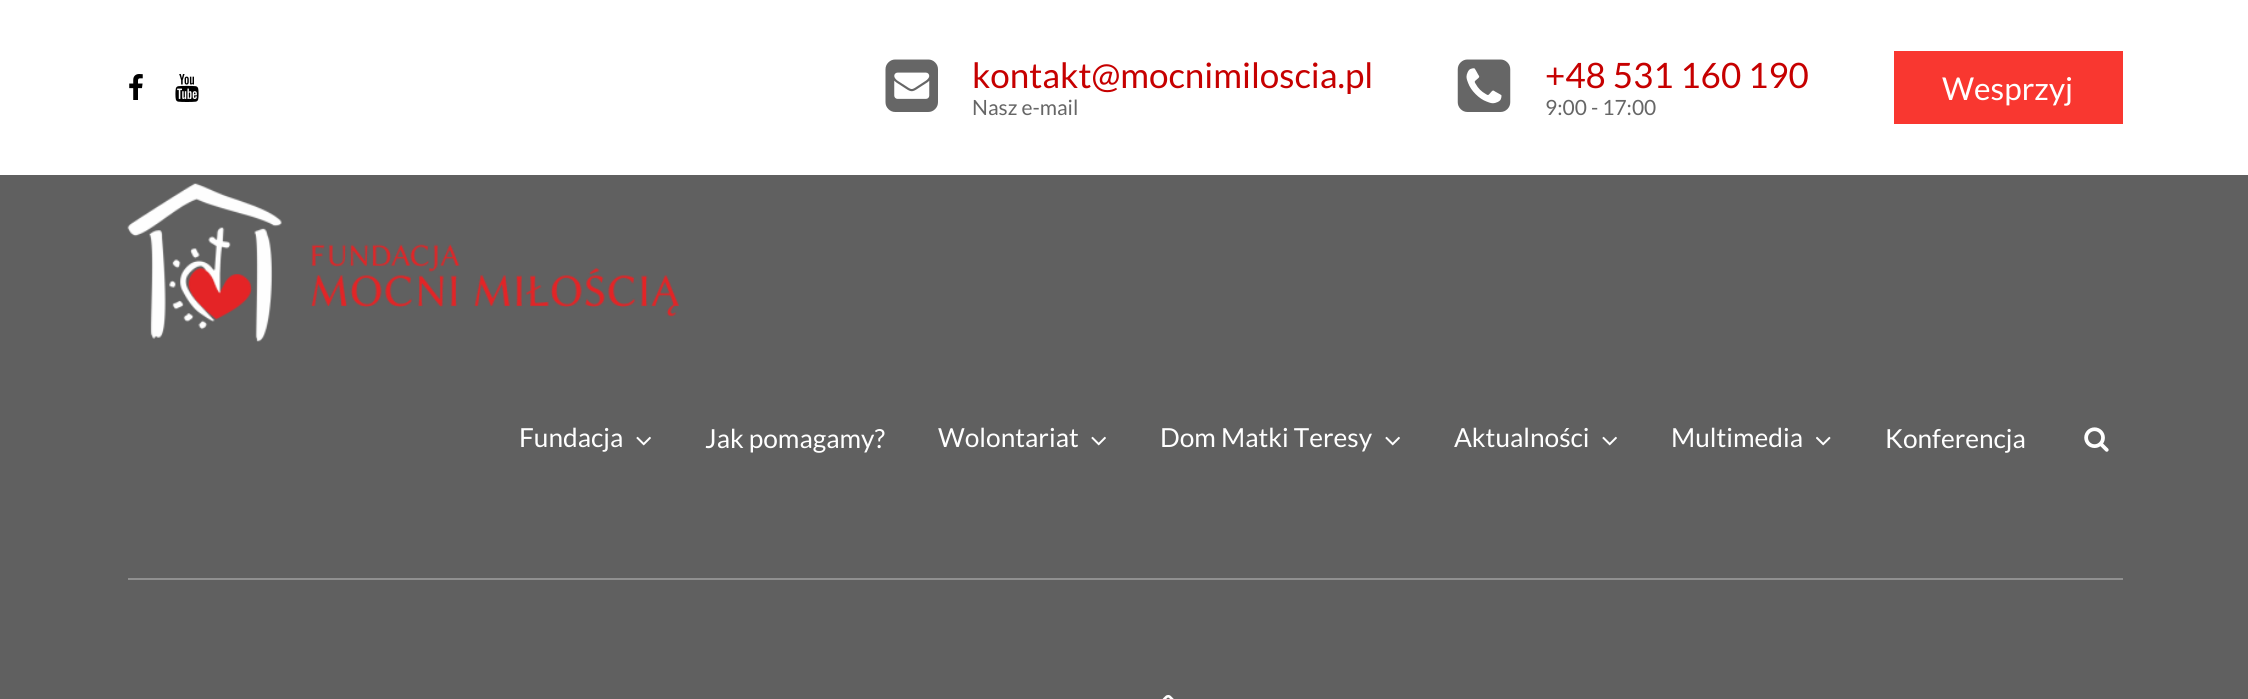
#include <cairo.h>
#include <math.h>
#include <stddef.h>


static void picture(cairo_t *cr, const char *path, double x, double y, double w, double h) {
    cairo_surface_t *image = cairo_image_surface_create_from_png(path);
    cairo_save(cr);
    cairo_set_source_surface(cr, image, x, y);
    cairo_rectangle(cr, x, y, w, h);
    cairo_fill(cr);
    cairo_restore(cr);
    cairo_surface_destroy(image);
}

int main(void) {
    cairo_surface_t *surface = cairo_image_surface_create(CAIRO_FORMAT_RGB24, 2248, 699);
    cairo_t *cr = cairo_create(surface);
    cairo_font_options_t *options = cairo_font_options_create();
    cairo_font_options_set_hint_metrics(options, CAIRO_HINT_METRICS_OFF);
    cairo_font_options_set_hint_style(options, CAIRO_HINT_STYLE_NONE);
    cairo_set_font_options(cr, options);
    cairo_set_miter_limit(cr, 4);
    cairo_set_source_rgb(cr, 1, 1, 1);
    cairo_paint(cr);
    picture(cr, "img1.png", 129, 74, 14, 26);
    picture(cr, "img2.png", 175, 74, 24, 28);
    picture(cr, "img3.png", 885, 59, 53, 53);
    cairo_select_font_face(cr, "Lato", CAIRO_FONT_SLANT_NORMAL, CAIRO_FONT_WEIGHT_NORMAL);
    cairo_set_font_size(cr, 35);
    cairo_set_source_rgb(cr, 0.776, 0, 0);
    cairo_move_to(cr, 972, 88);
    cairo_show_text(cr, "kontakt@mocnimiloscia.pl");
    cairo_set_font_size(cr, 21);
    cairo_set_source_rgb(cr, 0.4, 0.4, 0.4);
    cairo_move_to(cr, 972, 115);
    cairo_show_text(cr, "Nasz e-mail");
    picture(cr, "img4.png", 1457, 59, 54, 53);
    cairo_set_font_size(cr, 35);
    cairo_set_source_rgb(cr, 0.776, 0, 0);
    cairo_move_to(cr, 1545, 88);
    cairo_show_text(cr, "+48 531 160 190");
    cairo_set_font_size(cr, 21);
    cairo_set_source_rgb(cr, 0.4, 0.4, 0.4);
    cairo_move_to(cr, 1545, 115);
    cairo_show_text(cr, "9:00 - 17:00");
    cairo_set_source_rgb(cr, 0.973, 0.216, 0.188);
    cairo_rectangle(cr, 1894, 51, 229, 73);
    cairo_fill(cr);
    cairo_set_font_size(cr, 31.5);
    cairo_set_source_rgb(cr, 1, 1, 1);
    cairo_move_to(cr, 1942, 100);
    cairo_show_text(cr, "Wesprzyj");
    cairo_set_source_rgb(cr, 0.376, 0.376, 0.376);
    cairo_rectangle(cr, 0, 175, 2248, 524);
    cairo_fill(cr);
    picture(cr, "img5.png", 127, 183, 552, 159);
    cairo_set_font_size(cr, 26.25);
    cairo_set_source_rgb(cr, 1, 1, 1);
    cairo_move_to(cr, 519, 447);
    cairo_show_text(cr, "Fundacja");
    picture(cr, "img6.png", 636, 436, 15, 10);
    cairo_move_to(cr, 705, 448);
    cairo_show_text(cr, "Jak pomagamy?");
    cairo_move_to(cr, 938, 447);
    cairo_show_text(cr, "Wolontariat");
    picture(cr, "img6.png", 1091, 436, 15, 10);
    cairo_move_to(cr, 1160, 447);
    cairo_show_text(cr, "Dom Matki Teresy");
    picture(cr, "img6.png", 1385, 436, 15, 10);
    cairo_move_to(cr, 1454, 447);
    cairo_show_text(cr, "Aktualności");
    picture(cr, "img6.png", 1602, 436, 15, 10);
    cairo_move_to(cr, 1671, 447);
    cairo_show_text(cr, "Multimedia");
    picture(cr, "img7.png", 1816, 436, 15, 10);
    cairo_move_to(cr, 1885, 448);
    cairo_show_text(cr, "Konferencja");
    picture(cr, "img8.png", 2084, 427, 25, 25);
    cairo_set_source_rgb(cr, 0.565, 0.565, 0.565);
    cairo_rectangle(cr, 128, 578, 1995, 2);
    cairo_fill(cr);
    picture(cr, "img9.png", 1162, 695, 12, 4);
    cairo_surface_write_to_png(surface, "page.png");
    cairo_font_options_destroy(options);
    cairo_destroy(cr);
    cairo_surface_destroy(surface);
    return 0;
}
